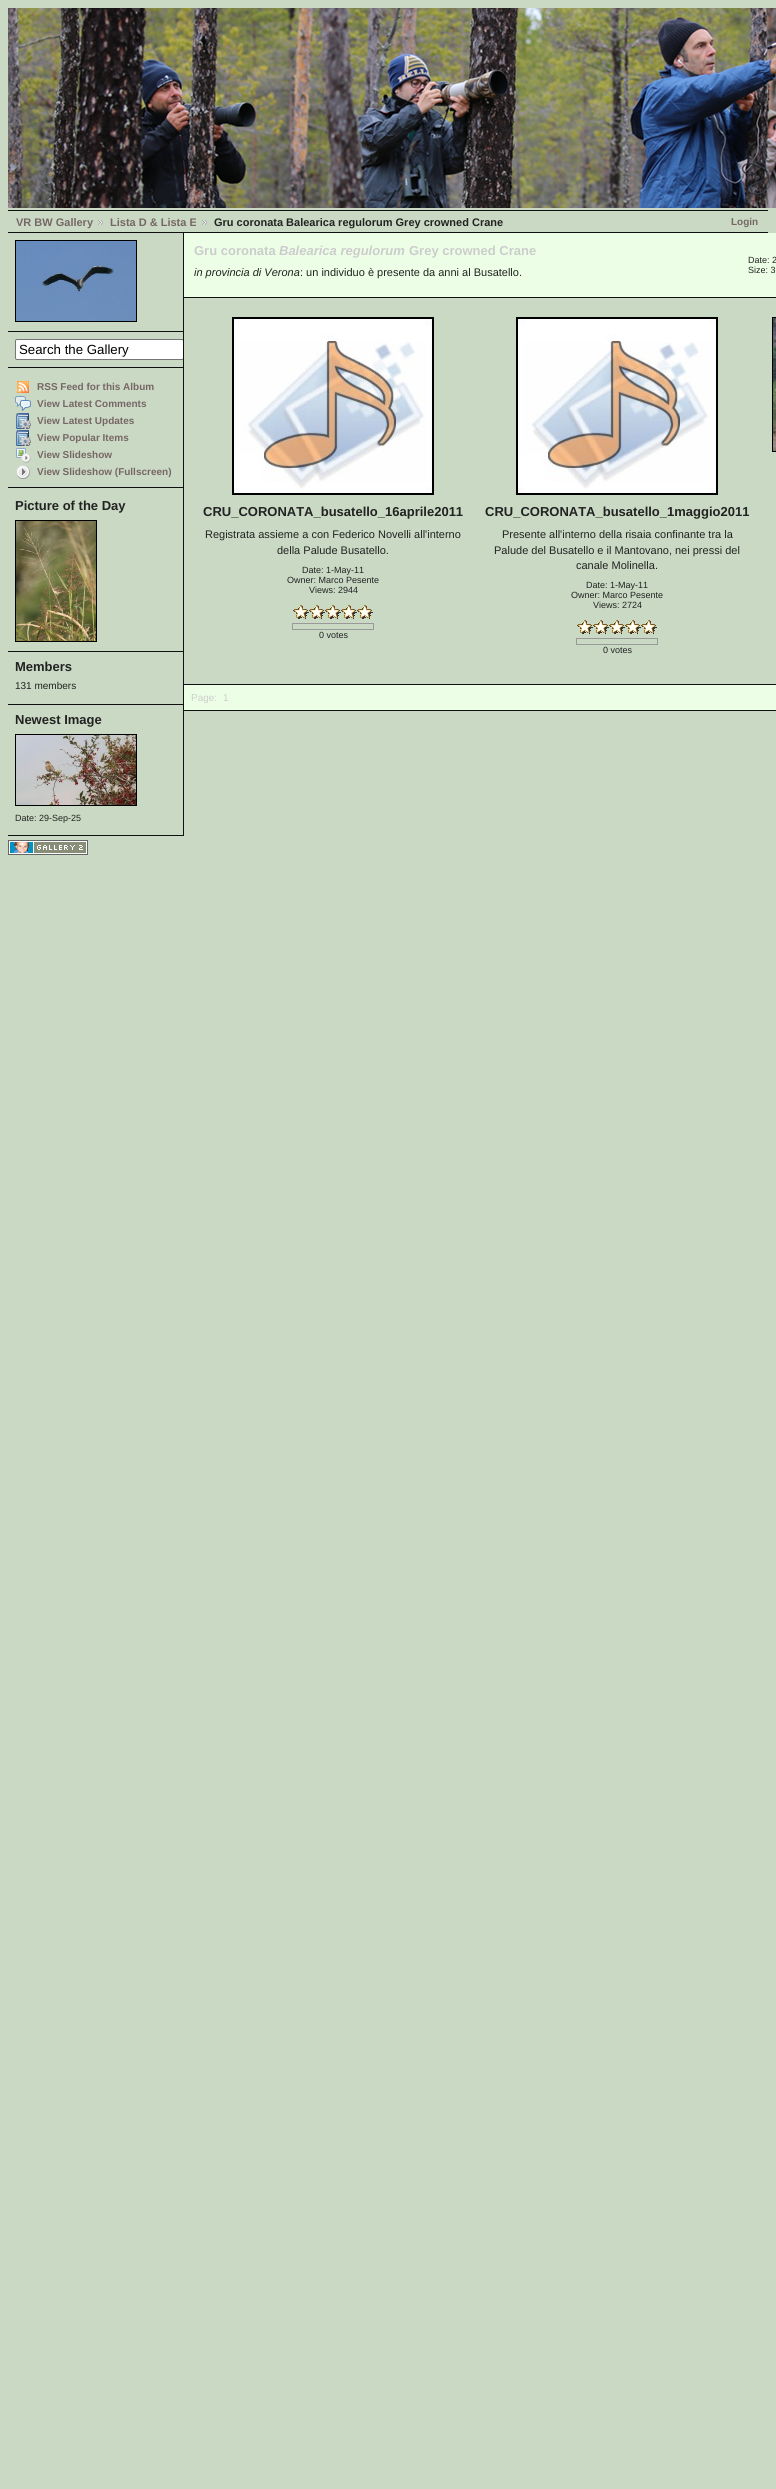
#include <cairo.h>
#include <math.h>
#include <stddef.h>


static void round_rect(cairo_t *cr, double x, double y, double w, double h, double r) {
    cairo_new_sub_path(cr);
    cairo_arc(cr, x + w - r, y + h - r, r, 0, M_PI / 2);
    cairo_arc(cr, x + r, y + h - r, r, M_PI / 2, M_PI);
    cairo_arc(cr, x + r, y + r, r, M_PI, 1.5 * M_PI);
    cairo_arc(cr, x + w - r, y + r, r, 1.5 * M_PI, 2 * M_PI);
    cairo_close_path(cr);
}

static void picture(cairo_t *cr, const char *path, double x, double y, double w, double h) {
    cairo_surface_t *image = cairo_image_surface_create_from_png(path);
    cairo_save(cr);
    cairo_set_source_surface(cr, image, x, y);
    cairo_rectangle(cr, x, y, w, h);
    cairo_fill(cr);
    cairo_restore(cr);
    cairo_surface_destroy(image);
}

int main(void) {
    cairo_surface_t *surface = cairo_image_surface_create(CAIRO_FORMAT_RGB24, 776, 2489);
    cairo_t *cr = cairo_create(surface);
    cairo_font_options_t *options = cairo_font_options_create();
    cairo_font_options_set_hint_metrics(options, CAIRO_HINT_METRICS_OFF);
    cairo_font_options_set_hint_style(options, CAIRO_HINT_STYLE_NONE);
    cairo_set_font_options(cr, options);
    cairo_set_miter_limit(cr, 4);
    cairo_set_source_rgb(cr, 0.788, 0.851, 0.765);
    cairo_paint(cr);
    picture(cr, "img1.png", 8, 8, 768, 200);
    cairo_set_source_rgb(cr, 0.067, 0.067, 0.067);
    cairo_rectangle(cr, 8, 210, 760, 1);
    cairo_fill(cr);
    cairo_rectangle(cr, 8, 232, 760, 1);
    cairo_fill(cr);
    cairo_select_font_face(cr, "Liberation Sans", CAIRO_FONT_SLANT_NORMAL, CAIRO_FONT_WEIGHT_BOLD);
    cairo_set_font_size(cr, 11);
    cairo_set_source_rgb(cr, 0.467, 0.4, 0.4);
    cairo_move_to(cr, 16, 226);
    cairo_show_text(cr, "VR BW Gallery");
    picture(cr, "img2.png", 98, 220, 6, 5);
    cairo_move_to(cr, 110, 226);
    cairo_show_text(cr, "Lista D & Lista E");
    picture(cr, "img2.png", 202, 220, 6, 5);
    cairo_set_source_rgb(cr, 0.133, 0.133, 0.133);
    cairo_move_to(cr, 214, 226);
    cairo_show_text(cr, "Gru coronata Balearica regulorum Grey crowned Crane");
    cairo_set_font_size(cr, 10);
    cairo_set_source_rgb(cr, 0.467, 0.4, 0.4);
    cairo_move_to(cr, 731, 225);
    cairo_show_text(cr, "Login");
    cairo_set_source_rgb(cr, 0.067, 0.067, 0.067);
    cairo_rectangle(cr, 183, 233, 1, 603);
    cairo_fill(cr);
    cairo_rectangle(cr, 8, 331, 175, 1);
    cairo_fill(cr);
    cairo_rectangle(cr, 15.5, 240.5, 121, 81);
    cairo_set_source_rgb(cr, 0, 0, 0);
    cairo_set_line_width(cr, 1);
    cairo_stroke(cr);
    picture(cr, "img3.png", 16, 241, 120, 80);
    cairo_set_source_rgb(cr, 0.067, 0.067, 0.067);
    cairo_rectangle(cr, 8, 367, 175, 1);
    cairo_fill(cr);
    cairo_save(cr);
    cairo_rectangle(cr, 8, 233, 175, 603);
    cairo_clip(cr);
    cairo_set_source_rgb(cr, 1, 1, 1);
    round_rect(cr, 15.5, 339.5, 168, 20, 1.5);
    cairo_fill_preserve(cr);
    cairo_set_source_rgb(cr, 0.463, 0.463, 0.463);
    cairo_stroke(cr);
    cairo_restore(cr);
    cairo_select_font_face(cr, "Liberation Sans", CAIRO_FONT_SLANT_NORMAL, CAIRO_FONT_WEIGHT_NORMAL);
    cairo_set_font_size(cr, 13.25);
    cairo_set_source_rgb(cr, 0, 0, 0);
    cairo_move_to(cr, 19, 354);
    cairo_show_text(cr, "Search the Gallery");
    cairo_set_source_rgb(cr, 0.067, 0.067, 0.067);
    cairo_rectangle(cr, 8, 487, 175, 1);
    cairo_fill(cr);
    picture(cr, "img4.png", 17, 381, 12, 12);
    cairo_select_font_face(cr, "Liberation Sans", CAIRO_FONT_SLANT_NORMAL, CAIRO_FONT_WEIGHT_BOLD);
    cairo_set_font_size(cr, 10);
    cairo_set_source_rgb(cr, 0.467, 0.4, 0.4);
    cairo_move_to(cr, 37, 390);
    cairo_show_text(cr, "RSS Feed for this Album");
    picture(cr, "img5.png", 15, 396, 16, 15);
    cairo_move_to(cr, 37, 407);
    cairo_show_text(cr, "View Latest Comments");
    picture(cr, "img6.png", 16, 413, 15, 16);
    cairo_move_to(cr, 37, 424);
    cairo_show_text(cr, "View Latest Updates");
    picture(cr, "img6.png", 16, 430, 15, 16);
    cairo_move_to(cr, 37, 441);
    cairo_show_text(cr, "View Popular Items");
    picture(cr, "img7.png", 16, 448, 15, 15);
    cairo_move_to(cr, 37, 458);
    cairo_show_text(cr, "View Slideshow");
    picture(cr, "img8.png", 16, 465, 14, 14);
    cairo_move_to(cr, 37, 475);
    cairo_show_text(cr, "View Slideshow (Fullscreen)");
    cairo_set_source_rgb(cr, 0.067, 0.067, 0.067);
    cairo_rectangle(cr, 8, 651, 175, 1);
    cairo_fill(cr);
    cairo_set_font_size(cr, 13);
    cairo_set_source_rgb(cr, 0.133, 0.133, 0.133);
    cairo_move_to(cr, 15, 510);
    cairo_show_text(cr, "Picture of the Day");
    cairo_rectangle(cr, 15.5, 520.5, 81, 121);
    cairo_set_source_rgb(cr, 0, 0, 0);
    cairo_stroke(cr);
    picture(cr, "img9.png", 16, 521, 80, 120);
    cairo_set_source_rgb(cr, 0.067, 0.067, 0.067);
    cairo_rectangle(cr, 8, 704, 175, 1);
    cairo_fill(cr);
    cairo_set_source_rgb(cr, 0.133, 0.133, 0.133);
    cairo_move_to(cr, 15, 671);
    cairo_show_text(cr, "Members");
    cairo_select_font_face(cr, "Liberation Sans", CAIRO_FONT_SLANT_NORMAL, CAIRO_FONT_WEIGHT_NORMAL);
    cairo_set_font_size(cr, 10);
    cairo_move_to(cr, 15, 689);
    cairo_show_text(cr, "131 members");
    cairo_set_source_rgb(cr, 0.067, 0.067, 0.067);
    cairo_rectangle(cr, 8, 835, 175, 1);
    cairo_fill(cr);
    cairo_select_font_face(cr, "Liberation Sans", CAIRO_FONT_SLANT_NORMAL, CAIRO_FONT_WEIGHT_BOLD);
    cairo_set_font_size(cr, 13);
    cairo_set_source_rgb(cr, 0.133, 0.133, 0.133);
    cairo_move_to(cr, 15, 724);
    cairo_show_text(cr, "Newest Image");
    cairo_rectangle(cr, 15.5, 734.5, 121, 71);
    cairo_set_source_rgb(cr, 0, 0, 0);
    cairo_stroke(cr);
    picture(cr, "img10.png", 16, 735, 120, 70);
    cairo_select_font_face(cr, "Liberation Sans", CAIRO_FONT_SLANT_NORMAL, CAIRO_FONT_WEIGHT_NORMAL);
    cairo_set_font_size(cr, 9);
    cairo_set_source_rgb(cr, 0.133, 0.133, 0.133);
    cairo_move_to(cr, 15, 821);
    cairo_show_text(cr, "Date: 29-Sep-25");
    cairo_set_source_rgb(cr, 0.925, 1, 0.902);
    cairo_rectangle(cr, 184, 233, 592, 64);
    cairo_fill(cr);
    cairo_set_source_rgb(cr, 0.067, 0.067, 0.067);
    cairo_rectangle(cr, 184, 297, 592, 1);
    cairo_fill(cr);
    cairo_select_font_face(cr, "Liberation Sans", CAIRO_FONT_SLANT_NORMAL, CAIRO_FONT_WEIGHT_BOLD);
    cairo_set_font_size(cr, 13);
    cairo_set_source_rgb(cr, 0.8, 0.8, 0.8);
    cairo_move_to(cr, 194, 255);
    cairo_show_text(cr, "Gru coronata");
    cairo_select_font_face(cr, "Liberation Sans", CAIRO_FONT_SLANT_ITALIC, CAIRO_FONT_WEIGHT_BOLD);
    cairo_move_to(cr, 279, 255);
    cairo_show_text(cr, "Balearica regulorum");
    cairo_select_font_face(cr, "Liberation Sans", CAIRO_FONT_SLANT_NORMAL, CAIRO_FONT_WEIGHT_BOLD);
    cairo_move_to(cr, 409, 255);
    cairo_show_text(cr, "Grey crowned Crane");
    cairo_select_font_face(cr, "Liberation Sans", CAIRO_FONT_SLANT_ITALIC, CAIRO_FONT_WEIGHT_NORMAL);
    cairo_set_font_size(cr, 11);
    cairo_set_source_rgb(cr, 0.133, 0.133, 0.133);
    cairo_move_to(cr, 194, 276);
    cairo_show_text(cr, "in provincia di Verona");
    cairo_select_font_face(cr, "Liberation Sans", CAIRO_FONT_SLANT_NORMAL, CAIRO_FONT_WEIGHT_NORMAL);
    cairo_move_to(cr, 300, 276);
    cairo_show_text(cr, ": un individuo è presente da anni al Busatello.");
    cairo_set_font_size(cr, 9);
    cairo_move_to(cr, 748, 263);
    cairo_show_text(cr, "Date: 2");
    cairo_move_to(cr, 748, 273);
    cairo_show_text(cr, "Size: 3");
    cairo_set_source_rgb(cr, 0.067, 0.067, 0.067);
    cairo_rectangle(cr, 184, 684, 592, 1);
    cairo_fill(cr);
    cairo_rectangle(cr, 772.5, 317.5, 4, 134);
    cairo_set_source_rgb(cr, 0, 0, 0);
    cairo_stroke(cr);
    picture(cr, "img11.png", 773, 318, 3, 133);
    cairo_rectangle(cr, 232.5, 317.5, 201, 177);
    cairo_stroke(cr);
    picture(cr, "img12.png", 233, 318, 200, 176);
    cairo_select_font_face(cr, "Liberation Sans", CAIRO_FONT_SLANT_NORMAL, CAIRO_FONT_WEIGHT_BOLD);
    cairo_set_font_size(cr, 13);
    cairo_set_source_rgb(cr, 0.133, 0.133, 0.133);
    cairo_move_to(cr, 203, 516);
    cairo_show_text(cr, "CRU_CORONATA_busatello_16aprile2011");
    cairo_select_font_face(cr, "Liberation Sans", CAIRO_FONT_SLANT_NORMAL, CAIRO_FONT_WEIGHT_NORMAL);
    cairo_set_font_size(cr, 11);
    cairo_move_to(cr, 205, 538);
    cairo_show_text(cr, "Registrata assieme a con Federico Novelli all'interno");
    cairo_move_to(cr, 277, 554);
    cairo_show_text(cr, "della Palude Busatello.");
    cairo_set_font_size(cr, 9);
    cairo_move_to(cr, 302, 573);
    cairo_show_text(cr, "Date: 1-May-11");
    cairo_move_to(cr, 287, 583);
    cairo_show_text(cr, "Owner: Marco Pesente");
    cairo_move_to(cr, 309, 593);
    cairo_show_text(cr, "Views: 2944");
    picture(cr, "img13.png", 293, 605, 16, 14);
    picture(cr, "img13.png", 309, 605, 16, 14);
    picture(cr, "img13.png", 325, 605, 16, 14);
    picture(cr, "img13.png", 341, 605, 16, 14);
    picture(cr, "img13.png", 357, 605, 16, 14);
    cairo_rectangle(cr, 292.5, 623.5, 81, 6);
    cairo_set_source_rgb(cr, 0.6, 0.6, 0.6);
    cairo_stroke(cr);
    cairo_set_source_rgb(cr, 0.133, 0.133, 0.133);
    cairo_move_to(cr, 319, 638);
    cairo_show_text(cr, "0 votes");
    cairo_rectangle(cr, 516.5, 317.5, 201, 177);
    cairo_set_source_rgb(cr, 0, 0, 0);
    cairo_stroke(cr);
    picture(cr, "img12.png", 517, 318, 200, 176);
    cairo_select_font_face(cr, "Liberation Sans", CAIRO_FONT_SLANT_NORMAL, CAIRO_FONT_WEIGHT_BOLD);
    cairo_set_font_size(cr, 13);
    cairo_set_source_rgb(cr, 0.133, 0.133, 0.133);
    cairo_move_to(cr, 485, 516);
    cairo_show_text(cr, "CRU_CORONATA_busatello_1maggio2011");
    cairo_select_font_face(cr, "Liberation Sans", CAIRO_FONT_SLANT_NORMAL, CAIRO_FONT_WEIGHT_NORMAL);
    cairo_set_font_size(cr, 11);
    cairo_move_to(cr, 502, 538);
    cairo_show_text(cr, "Presente all'interno della risaia confinante tra la");
    cairo_move_to(cr, 494, 554);
    cairo_show_text(cr, "Palude del Busatello e il Mantovano, nei pressi del");
    cairo_move_to(cr, 576, 569);
    cairo_show_text(cr, "canale Molinella.");
    cairo_set_font_size(cr, 9);
    cairo_move_to(cr, 586, 588);
    cairo_show_text(cr, "Date: 1-May-11");
    cairo_move_to(cr, 571, 598);
    cairo_show_text(cr, "Owner: Marco Pesente");
    cairo_move_to(cr, 593, 608);
    cairo_show_text(cr, "Views: 2724");
    picture(cr, "img13.png", 577, 620, 16, 14);
    picture(cr, "img13.png", 593, 620, 16, 14);
    picture(cr, "img13.png", 609, 620, 16, 14);
    picture(cr, "img13.png", 625, 620, 16, 14);
    picture(cr, "img13.png", 641, 620, 16, 14);
    cairo_rectangle(cr, 576.5, 638.5, 81, 6);
    cairo_set_source_rgb(cr, 0.6, 0.6, 0.6);
    cairo_stroke(cr);
    cairo_set_source_rgb(cr, 0.133, 0.133, 0.133);
    cairo_move_to(cr, 603, 653);
    cairo_show_text(cr, "0 votes");
    cairo_set_source_rgb(cr, 0.925, 1, 0.902);
    cairo_rectangle(cr, 184, 685, 592, 25);
    cairo_fill(cr);
    cairo_set_source_rgb(cr, 0.067, 0.067, 0.067);
    cairo_rectangle(cr, 184, 710, 592, 1);
    cairo_fill(cr);
    cairo_set_font_size(cr, 10);
    cairo_set_source_rgb(cr, 0.8, 0.8, 0.8);
    cairo_move_to(cr, 191, 701);
    cairo_show_text(cr, "Page:");
    cairo_move_to(cr, 223, 701);
    cairo_show_text(cr, "1");
    picture(cr, "img14.png", 8, 840, 80, 15);
    cairo_surface_write_to_png(surface, "page.png");
    cairo_font_options_destroy(options);
    cairo_destroy(cr);
    cairo_surface_destroy(surface);
    return 0;
}
